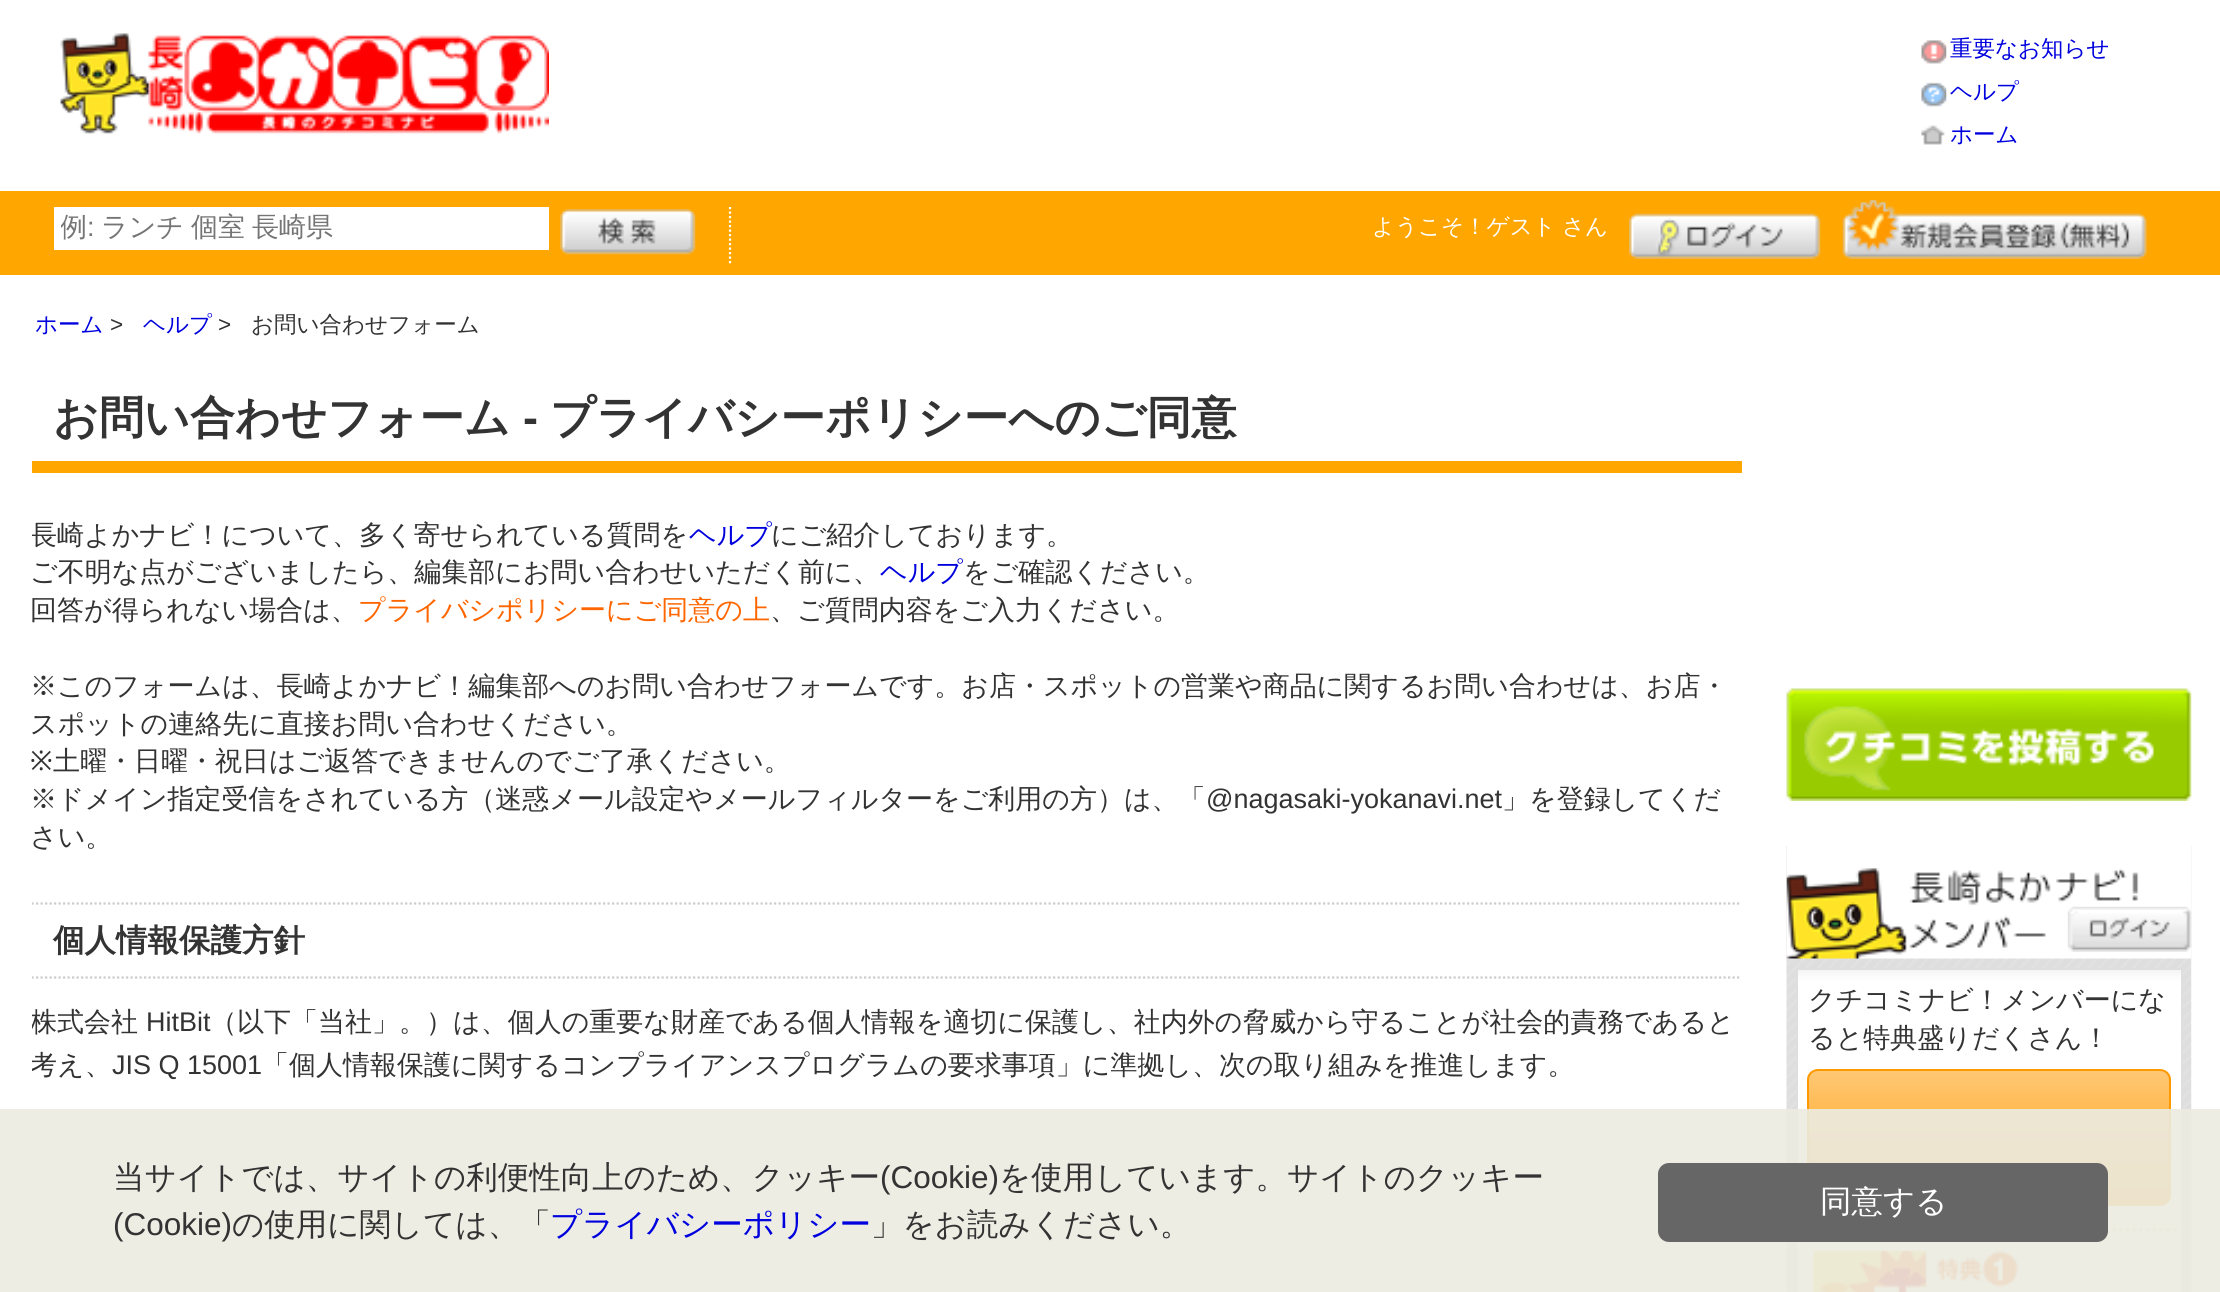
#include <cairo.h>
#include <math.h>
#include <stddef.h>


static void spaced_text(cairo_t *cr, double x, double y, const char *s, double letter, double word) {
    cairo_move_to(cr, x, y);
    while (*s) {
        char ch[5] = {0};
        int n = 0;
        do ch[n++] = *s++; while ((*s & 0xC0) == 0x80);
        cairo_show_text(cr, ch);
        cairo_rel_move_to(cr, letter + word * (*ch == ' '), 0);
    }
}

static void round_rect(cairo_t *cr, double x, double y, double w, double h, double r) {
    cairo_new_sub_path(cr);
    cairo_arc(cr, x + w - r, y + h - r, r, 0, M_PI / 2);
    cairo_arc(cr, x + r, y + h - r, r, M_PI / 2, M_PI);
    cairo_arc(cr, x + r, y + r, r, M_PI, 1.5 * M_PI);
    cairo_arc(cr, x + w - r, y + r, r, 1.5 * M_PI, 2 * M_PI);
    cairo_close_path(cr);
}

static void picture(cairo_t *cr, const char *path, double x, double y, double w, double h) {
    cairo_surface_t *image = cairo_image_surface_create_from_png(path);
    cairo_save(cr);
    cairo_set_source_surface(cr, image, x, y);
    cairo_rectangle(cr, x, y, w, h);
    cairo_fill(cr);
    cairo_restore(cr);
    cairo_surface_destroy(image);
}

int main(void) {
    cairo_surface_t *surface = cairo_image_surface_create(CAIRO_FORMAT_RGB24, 2220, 1292);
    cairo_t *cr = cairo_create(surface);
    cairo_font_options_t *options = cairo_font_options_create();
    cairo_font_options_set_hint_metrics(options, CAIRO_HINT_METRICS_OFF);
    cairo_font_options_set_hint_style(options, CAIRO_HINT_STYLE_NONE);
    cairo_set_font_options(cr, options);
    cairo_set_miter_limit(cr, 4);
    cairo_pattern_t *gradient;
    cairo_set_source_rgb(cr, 1, 1, 1);
    cairo_paint(cr);
    picture(cr, "img1.png", 60, 33, 489, 101);
    picture(cr, "img2.png", 1921, 40, 26, 24);
    cairo_select_font_face(cr, "WenQuanYi Zen Hei Medium", CAIRO_FONT_SLANT_NORMAL, CAIRO_FONT_WEIGHT_NORMAL);
    cairo_set_font_size(cr, 22.5);
    cairo_set_source_rgb(cr, 0, 0, 0.871);
    cairo_move_to(cr, 1950, 56);
    cairo_show_text(cr, "重要なお知らせ");
    picture(cr, "img3.png", 1921, 82, 26, 25);
    cairo_move_to(cr, 1950, 99);
    cairo_show_text(cr, "ヘルプ");
    picture(cr, "img4.png", 1921, 125, 24, 20);
    cairo_move_to(cr, 1950, 142);
    cairo_show_text(cr, "ホーム");
    cairo_set_source_rgb(cr, 1, 0.651, 0);
    cairo_rectangle(cr, 0, 191, 2220, 84);
    cairo_fill(cr);
    cairo_new_path(cr);
    cairo_move_to(cr, 730, 207);
    cairo_line_to(cr, 730, 265.5);
    cairo_set_source_rgb(cr, 1, 1, 1);
    cairo_set_line_width(cr, 2.2);
    cairo_set_dash(cr, (double[]){2.25, 2.25}, 2, 0);
    cairo_stroke(cr);
    cairo_rectangle(cr, 54, 207, 495, 43);
    cairo_fill(cr);
    cairo_save(cr);
    cairo_rectangle(cr, 61, 209, 454, 39);
    cairo_clip(cr);
    cairo_set_font_size(cr, 27);
    cairo_set_source_rgb(cr, 0.459, 0.459, 0.459);
    cairo_move_to(cr, 60, 236);
    cairo_show_text(cr, "例");
    cairo_restore(cr);
    cairo_select_font_face(cr, "Liberation Sans", CAIRO_FONT_SLANT_NORMAL, CAIRO_FONT_WEIGHT_NORMAL);
    cairo_set_font_size(cr, 27);
    cairo_set_source_rgb(cr, 0.459, 0.459, 0.459);
    cairo_move_to(cr, 87, 236);
    cairo_show_text(cr, ":");
    cairo_select_font_face(cr, "WenQuanYi Zen Hei Medium", CAIRO_FONT_SLANT_NORMAL, CAIRO_FONT_WEIGHT_NORMAL);
    spaced_text(cr, 101, 236, "ランチ 個室 長崎県", 0, -1);
    picture(cr, "img5.png", 560, 209, 136, 46);
    cairo_set_font_size(cr, 22.5);
    cairo_set_source_rgb(cr, 1, 1, 1);
    cairo_move_to(cr, 1372, 234);
    cairo_show_text(cr, "ようこそ！ゲスト");
    cairo_move_to(cr, 1562, 234);
    cairo_show_text(cr, "さん");
    picture(cr, "img6.png", 1629, 213, 192, 46);
    picture(cr, "img7.png", 1842, 200, 305, 59);
    cairo_set_source_rgb(cr, 0, 0, 0.871);
    cairo_move_to(cr, 35, 332);
    cairo_show_text(cr, "ホーム");
    cairo_select_font_face(cr, "Liberation Sans", CAIRO_FONT_SLANT_NORMAL, CAIRO_FONT_WEIGHT_NORMAL);
    cairo_set_source_rgb(cr, 0.2, 0.2, 0.2);
    cairo_move_to(cr, 110, 332);
    cairo_show_text(cr, ">");
    cairo_select_font_face(cr, "WenQuanYi Zen Hei Medium", CAIRO_FONT_SLANT_NORMAL, CAIRO_FONT_WEIGHT_NORMAL);
    cairo_set_source_rgb(cr, 0, 0, 0.871);
    cairo_move_to(cr, 143, 332);
    cairo_show_text(cr, "ヘルプ");
    cairo_select_font_face(cr, "Liberation Sans", CAIRO_FONT_SLANT_NORMAL, CAIRO_FONT_WEIGHT_NORMAL);
    cairo_set_source_rgb(cr, 0.2, 0.2, 0.2);
    cairo_move_to(cr, 218, 332);
    cairo_show_text(cr, ">");
    cairo_select_font_face(cr, "WenQuanYi Zen Hei Medium", CAIRO_FONT_SLANT_NORMAL, CAIRO_FONT_WEIGHT_NORMAL);
    cairo_move_to(cr, 251, 332);
    cairo_show_text(cr, "お問い合わせフォーム");
    cairo_set_source_rgb(cr, 1, 0.651, 0);
    cairo_rectangle(cr, 32, 461, 1710, 12);
    cairo_fill(cr);
    cairo_select_font_face(cr, "WenQuanYi Zen Hei", CAIRO_FONT_SLANT_NORMAL, CAIRO_FONT_WEIGHT_BOLD);
    cairo_set_font_size(cr, 45);
    cairo_set_source_rgb(cr, 0.2, 0.2, 0.2);
    cairo_move_to(cr, 53, 433);
    cairo_show_text(cr, "お問い合わせフォーム");
    cairo_select_font_face(cr, "Liberation Sans", CAIRO_FONT_SLANT_NORMAL, CAIRO_FONT_WEIGHT_BOLD);
    cairo_move_to(cr, 523, 433);
    cairo_show_text(cr, "-");
    cairo_select_font_face(cr, "WenQuanYi Zen Hei", CAIRO_FONT_SLANT_NORMAL, CAIRO_FONT_WEIGHT_BOLD);
    cairo_move_to(cr, 550, 433);
    cairo_show_text(cr, "プライバシーポリシーへのご同意");
    cairo_save(cr);
    cairo_rectangle(cr, 32, 297, 1710, 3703);
    cairo_clip(cr);
    cairo_select_font_face(cr, "WenQuanYi Zen Hei Medium", CAIRO_FONT_SLANT_NORMAL, CAIRO_FONT_WEIGHT_NORMAL);
    cairo_set_font_size(cr, 27);
    cairo_move_to(cr, 30, 544);
    cairo_show_text(cr, "長崎よかナビ！について、多く寄せられている質問を");
    cairo_restore(cr);
    cairo_select_font_face(cr, "WenQuanYi Zen Hei Medium", CAIRO_FONT_SLANT_NORMAL, CAIRO_FONT_WEIGHT_NORMAL);
    cairo_set_font_size(cr, 27);
    cairo_set_source_rgb(cr, 0, 0, 0.871);
    cairo_move_to(cr, 689, 544);
    cairo_show_text(cr, "ヘルプ");
    cairo_set_source_rgb(cr, 0.2, 0.2, 0.2);
    cairo_move_to(cr, 771, 544);
    cairo_show_text(cr, "にご紹介しております。");
    cairo_move_to(cr, 30, 581);
    cairo_show_text(cr, "ご不明な点がございましたら、編集部にお問い合わせいただく前に、");
    cairo_set_source_rgb(cr, 0, 0, 0.871);
    cairo_move_to(cr, 880, 581);
    cairo_show_text(cr, "ヘルプ");
    cairo_set_source_rgb(cr, 0.2, 0.2, 0.2);
    cairo_move_to(cr, 963, 581);
    cairo_show_text(cr, "をご確認ください。");
    cairo_move_to(cr, 30, 619);
    cairo_show_text(cr, "回答が得られない場合は、");
    cairo_set_source_rgb(cr, 1, 0.4, 0);
    cairo_move_to(cr, 358, 619);
    cairo_show_text(cr, "プライバシポリシーにご同意の上");
    cairo_set_source_rgb(cr, 0.2, 0.2, 0.2);
    cairo_move_to(cr, 770, 619);
    cairo_show_text(cr, "、ご質問内容をご入力ください。");
    cairo_move_to(cr, 30, 695);
    cairo_show_text(cr, "※このフォームは、長崎よかナビ！編集部へのお問い合わせフォームです。お店・スポットの営業や商品に関するお問い合わせは、お店・");
    cairo_move_to(cr, 30, 733);
    cairo_show_text(cr, "スポットの連絡先に直接お問い合わせください。");
    cairo_select_font_face(cr, "Noto Sans", CAIRO_FONT_SLANT_NORMAL, CAIRO_FONT_WEIGHT_NORMAL);
    cairo_move_to(cr, 30, 770);
    cairo_show_text(cr, "※");
    cairo_select_font_face(cr, "WenQuanYi Zen Hei Medium", CAIRO_FONT_SLANT_NORMAL, CAIRO_FONT_WEIGHT_NORMAL);
    cairo_move_to(cr, 53, 770);
    cairo_show_text(cr, "土曜・日曜・祝日はご返答できませんのでご了承ください。");
    cairo_move_to(cr, 30, 808);
    cairo_show_text(cr, "※ドメイン指定受信をされている方（迷惑メール設定やメールフィルターをご利用の方）は、「");
    cairo_select_font_face(cr, "Liberation Sans", CAIRO_FONT_SLANT_NORMAL, CAIRO_FONT_WEIGHT_NORMAL);
    cairo_move_to(cr, 1206, 808);
    cairo_show_text(cr, "@nagasaki-yokanavi.net");
    cairo_select_font_face(cr, "WenQuanYi Zen Hei Medium", CAIRO_FONT_SLANT_NORMAL, CAIRO_FONT_WEIGHT_NORMAL);
    cairo_move_to(cr, 1502, 808);
    cairo_show_text(cr, "」を登録してくだ");
    cairo_move_to(cr, 30, 846);
    cairo_show_text(cr, "さい。");
    cairo_save(cr);
    cairo_rectangle(cr, 32, 297, 1710, 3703);
    cairo_clip(cr);
    cairo_new_path(cr);
    cairo_move_to(cr, 31.5, 903.5);
    cairo_line_to(cr, 1741.5, 903.5);
    cairo_set_source_rgb(cr, 0.8, 0.8, 0.8);
    cairo_stroke(cr);
    cairo_new_path(cr);
    cairo_move_to(cr, 31.5, 977.5);
    cairo_line_to(cr, 1741.5, 977.5);
    cairo_stroke(cr);
    cairo_restore(cr);
    cairo_select_font_face(cr, "WenQuanYi Zen Hei", CAIRO_FONT_SLANT_NORMAL, CAIRO_FONT_WEIGHT_BOLD);
    cairo_set_font_size(cr, 31.5);
    cairo_move_to(cr, 53, 951);
    cairo_show_text(cr, "個人情報保護方針");
    cairo_save(cr);
    cairo_rectangle(cr, 32, 297, 1710, 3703);
    cairo_clip(cr);
    cairo_select_font_face(cr, "WenQuanYi Zen Hei Medium", CAIRO_FONT_SLANT_NORMAL, CAIRO_FONT_WEIGHT_NORMAL);
    cairo_set_font_size(cr, 27);
    cairo_move_to(cr, 30, 1031);
    cairo_show_text(cr, "株式会社");
    cairo_restore(cr);
    cairo_select_font_face(cr, "Liberation Sans", CAIRO_FONT_SLANT_NORMAL, CAIRO_FONT_WEIGHT_NORMAL);
    cairo_set_font_size(cr, 27);
    cairo_move_to(cr, 146, 1031);
    cairo_show_text(cr, "HitBit");
    cairo_select_font_face(cr, "WenQuanYi Zen Hei Medium", CAIRO_FONT_SLANT_NORMAL, CAIRO_FONT_WEIGHT_NORMAL);
    cairo_move_to(cr, 210, 1031);
    cairo_show_text(cr, "（以下「当社」。）は、個人の重要な財産である個人情報を適切に保護し、社内外の脅威から守ることが社会的責務であると");
    cairo_save(cr);
    cairo_rectangle(cr, 32, 297, 1710, 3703);
    cairo_clip(cr);
    cairo_move_to(cr, 30, 1074);
    cairo_show_text(cr, "考え、");
    cairo_restore(cr);
    cairo_select_font_face(cr, "Liberation Sans", CAIRO_FONT_SLANT_NORMAL, CAIRO_FONT_WEIGHT_NORMAL);
    cairo_move_to(cr, 112, 1074);
    cairo_show_text(cr, "JIS Q 15001");
    cairo_select_font_face(cr, "WenQuanYi Zen Hei Medium", CAIRO_FONT_SLANT_NORMAL, CAIRO_FONT_WEIGHT_NORMAL);
    cairo_move_to(cr, 262, 1074);
    cairo_show_text(cr, "「個人情報保護に関するコンプライアンスプログラムの要求事項」に準拠し、次の取り組みを推進します。");
    picture(cr, "img8.png", 1786, 688, 406, 113);
    picture(cr, "img9.png", 1786, 846, 406, 446);
    picture(cr, "img10.png", 1786, 846, 405, 113);
    gradient = cairo_pattern_create_linear(1989, 970, 1989, 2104);
    cairo_pattern_add_color_stop_rgba(gradient, 0, 0.961, 0.961, 0.961, 1);
    cairo_pattern_add_color_stop_rgba(gradient, 0.01, 1, 1, 1, 1);
    cairo_pattern_add_color_stop_rgba(gradient, 1, 1, 1, 1, 1);
    cairo_set_source(cr, gradient);
    cairo_pattern_destroy(gradient);
    cairo_rectangle(cr, 1798, 970, 383, 322);
    cairo_fill(cr);
    cairo_rectangle(cr, 1797, 969, 385, 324);
    cairo_set_source_rgb(cr, 0.871, 0.871, 0.871);
    cairo_set_line_width(cr, 2);
    cairo_set_dash(cr, NULL, 0, 0);
    cairo_stroke(cr);
    picture(cr, "img11.png", 2067, 906, 125, 46);
    cairo_set_source_rgb(cr, 0.2, 0.2, 0.2);
    cairo_move_to(cr, 1808, 1009);
    cairo_show_text(cr, "クチコミナビ！メンバーにな");
    cairo_move_to(cr, 1808, 1047);
    cairo_show_text(cr, "ると特典盛りだくさん！");
    cairo_save(cr);
    round_rect(cr, 1807, 1069, 364, 137, 11);
    cairo_clip(cr);
    gradient = cairo_pattern_create_linear(1989, 1071, 1989, 1204);
    cairo_pattern_add_color_stop_rgba(gradient, 0, 1, 0.784, 0.459, 1);
    cairo_pattern_add_color_stop_rgba(gradient, 1, 1, 0.6, 0, 1);
    cairo_set_source(cr, gradient);
    cairo_pattern_destroy(gradient);
    cairo_rectangle(cr, 1807, 1071, 364, 133);
    cairo_fill(cr);
    cairo_restore(cr);
    round_rect(cr, 1808, 1070, 362, 135, 10);
    cairo_set_source_rgb(cr, 1, 0.6, 0);
    cairo_stroke(cr);
    picture(cr, "img12.png", 1797, 1228, 380, 64);
    cairo_set_source_rgba(cr, 0.922, 0.922, 0.882, 0.9);
    cairo_rectangle(cr, 0, 1109, 2220, 183);
    cairo_fill(cr);
    cairo_set_font_size(cr, 31.5);
    cairo_set_source_rgb(cr, 0.2, 0.2, 0.2);
    cairo_move_to(cr, 113, 1188);
    cairo_show_text(cr, "当サイトでは、サイトの利便性向上のため、クッキー");
    cairo_select_font_face(cr, "Liberation Sans", CAIRO_FONT_SLANT_NORMAL, CAIRO_FONT_WEIGHT_NORMAL);
    cairo_move_to(cr, 880, 1188);
    cairo_show_text(cr, "(Cookie)");
    cairo_select_font_face(cr, "WenQuanYi Zen Hei Medium", CAIRO_FONT_SLANT_NORMAL, CAIRO_FONT_WEIGHT_NORMAL);
    cairo_move_to(cr, 999, 1188);
    cairo_show_text(cr, "を使用しています。サイトのクッキー");
    cairo_select_font_face(cr, "Liberation Sans", CAIRO_FONT_SLANT_NORMAL, CAIRO_FONT_WEIGHT_NORMAL);
    cairo_move_to(cr, 113, 1235);
    cairo_show_text(cr, "(Cookie)");
    cairo_select_font_face(cr, "WenQuanYi Zen Hei Medium", CAIRO_FONT_SLANT_NORMAL, CAIRO_FONT_WEIGHT_NORMAL);
    cairo_move_to(cr, 232, 1235);
    cairo_show_text(cr, "の使用に関しては、「");
    cairo_set_source_rgb(cr, 0, 0, 0.871);
    cairo_move_to(cr, 550, 1235);
    cairo_show_text(cr, "プライバシーポリシー");
    cairo_set_source_rgb(cr, 0.2, 0.2, 0.2);
    cairo_move_to(cr, 871, 1235);
    cairo_show_text(cr, "」をお読みください。");
    cairo_set_source_rgb(cr, 0.4, 0.4, 0.4);
    round_rect(cr, 1658, 1163, 450, 79, 11);
    cairo_fill(cr);
    cairo_set_source_rgb(cr, 1, 1, 1);
    cairo_move_to(cr, 1820, 1212);
    cairo_show_text(cr, "同意する");
    cairo_surface_write_to_png(surface, "page.png");
    cairo_font_options_destroy(options);
    cairo_destroy(cr);
    cairo_surface_destroy(surface);
    return 0;
}
